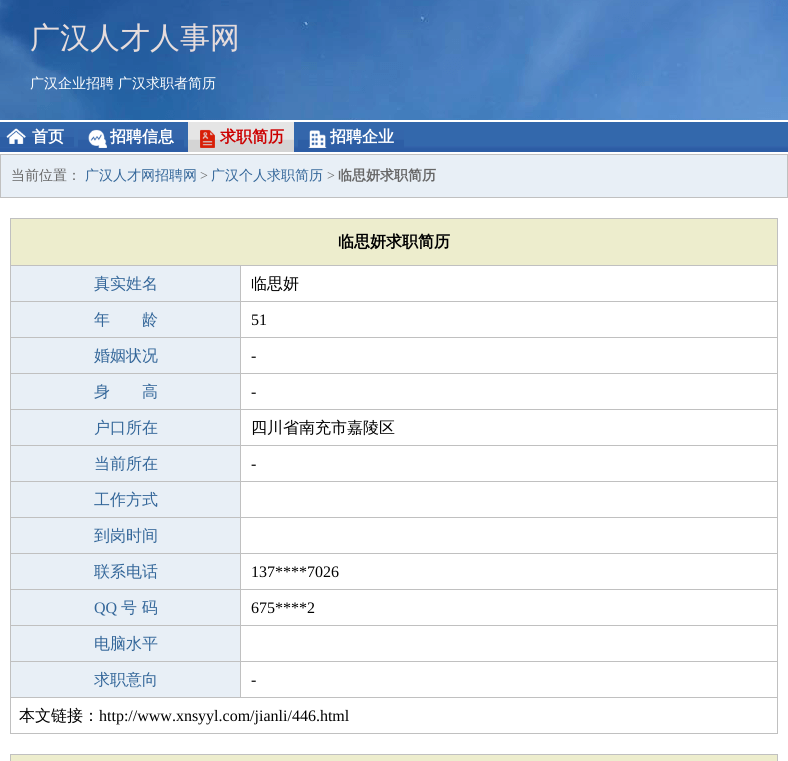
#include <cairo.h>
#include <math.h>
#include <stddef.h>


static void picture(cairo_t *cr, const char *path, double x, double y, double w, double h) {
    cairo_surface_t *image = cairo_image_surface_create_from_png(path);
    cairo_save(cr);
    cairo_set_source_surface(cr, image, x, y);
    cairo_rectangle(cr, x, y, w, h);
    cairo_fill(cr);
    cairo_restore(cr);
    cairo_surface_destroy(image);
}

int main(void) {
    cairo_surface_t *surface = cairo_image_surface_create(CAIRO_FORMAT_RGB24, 788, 761);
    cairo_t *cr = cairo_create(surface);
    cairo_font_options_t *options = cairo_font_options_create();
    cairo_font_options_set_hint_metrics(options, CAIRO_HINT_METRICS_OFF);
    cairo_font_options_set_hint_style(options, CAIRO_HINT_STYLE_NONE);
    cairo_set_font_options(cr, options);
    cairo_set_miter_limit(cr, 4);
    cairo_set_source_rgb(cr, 1, 1, 1);
    cairo_paint(cr);
    picture(cr, "img1.png", 0, 0, 788, 120);
    cairo_select_font_face(cr, "WenQuanYi Zen Hei Medium", CAIRO_FONT_SLANT_NORMAL, CAIRO_FONT_WEIGHT_NORMAL);
    cairo_set_font_size(cr, 30);
    cairo_set_source_rgb(cr, 0.902, 0.863, 0.863);
    cairo_move_to(cr, 30, 48);
    cairo_show_text(cr, "广汉人才人事网");
    cairo_set_font_size(cr, 14);
    cairo_set_source_rgb(cr, 1, 1, 1);
    cairo_move_to(cr, 30, 88);
    cairo_show_text(cr, "广汉企业招聘");
    cairo_move_to(cr, 118, 88);
    cairo_show_text(cr, "广汉求职者简历");
    picture(cr, "img2.png", 0, 122, 788, 30);
    picture(cr, "img3.png", 0, 128, 74, 19);
    cairo_select_font_face(cr, "WenQuanYi Zen Hei", CAIRO_FONT_SLANT_NORMAL, CAIRO_FONT_WEIGHT_BOLD);
    cairo_set_font_size(cr, 16);
    cairo_move_to(cr, 32, 142);
    cairo_show_text(cr, "首页");
    picture(cr, "img4.png", 78, 129, 106, 19);
    cairo_move_to(cr, 110, 142);
    cairo_show_text(cr, "招聘信息");
    picture(cr, "img5.png", 188, 122, 106, 30);
    cairo_set_source_rgb(cr, 0.8, 0, 0);
    cairo_move_to(cr, 220, 142);
    cairo_show_text(cr, "求职简历");
    picture(cr, "img6.png", 298, 130, 106, 18);
    cairo_set_source_rgb(cr, 1, 1, 1);
    cairo_move_to(cr, 330, 142);
    cairo_show_text(cr, "招聘企业");
    cairo_set_source_rgb(cr, 0.91, 0.937, 0.961);
    cairo_rectangle(cr, 0.5, 154.5, 787, 43);
    cairo_fill_preserve(cr);
    cairo_set_source_rgb(cr, 0.753, 0.753, 0.753);
    cairo_set_line_width(cr, 1);
    cairo_stroke(cr);
    cairo_select_font_face(cr, "WenQuanYi Zen Hei Medium", CAIRO_FONT_SLANT_NORMAL, CAIRO_FONT_WEIGHT_NORMAL);
    cairo_set_font_size(cr, 14);
    cairo_set_source_rgb(cr, 0.4, 0.4, 0.4);
    cairo_move_to(cr, 11, 180);
    cairo_show_text(cr, "当前位置：");
    cairo_set_source_rgb(cr, 0.2, 0.4, 0.6);
    cairo_move_to(cr, 85, 180);
    cairo_show_text(cr, "广汉人才网招聘网");
    cairo_select_font_face(cr, "Liberation Serif", CAIRO_FONT_SLANT_NORMAL, CAIRO_FONT_WEIGHT_NORMAL);
    cairo_set_source_rgb(cr, 0.4, 0.4, 0.4);
    cairo_move_to(cr, 200, 180);
    cairo_show_text(cr, ">");
    cairo_select_font_face(cr, "WenQuanYi Zen Hei Medium", CAIRO_FONT_SLANT_NORMAL, CAIRO_FONT_WEIGHT_NORMAL);
    cairo_set_source_rgb(cr, 0.2, 0.4, 0.6);
    cairo_move_to(cr, 211, 180);
    cairo_show_text(cr, "广汉个人求职简历");
    cairo_select_font_face(cr, "Liberation Serif", CAIRO_FONT_SLANT_NORMAL, CAIRO_FONT_WEIGHT_NORMAL);
    cairo_set_source_rgb(cr, 0.4, 0.4, 0.4);
    cairo_move_to(cr, 327, 180);
    cairo_show_text(cr, ">");
    cairo_select_font_face(cr, "WenQuanYi Zen Hei", CAIRO_FONT_SLANT_NORMAL, CAIRO_FONT_WEIGHT_BOLD);
    cairo_move_to(cr, 338, 180);
    cairo_show_text(cr, "临思妍求职简历");
    cairo_rectangle(cr, 10.5, 218.5, 767, 515);
    cairo_set_source_rgb(cr, 0.753, 0.753, 0.753);
    cairo_stroke(cr);
    cairo_set_source_rgb(cr, 0.929, 0.929, 0.804);
    cairo_rectangle(cr, 11, 219, 766, 46);
    cairo_fill(cr);
    cairo_set_source_rgb(cr, 0.753, 0.753, 0.753);
    cairo_rectangle(cr, 11, 265, 766, 1);
    cairo_fill(cr);
    cairo_set_font_size(cr, 16);
    cairo_set_source_rgb(cr, 0, 0, 0);
    cairo_move_to(cr, 338, 247);
    cairo_show_text(cr, "临思妍求职简历");
    cairo_set_source_rgb(cr, 0.91, 0.937, 0.961);
    cairo_rectangle(cr, 11, 266, 229, 35);
    cairo_fill(cr);
    cairo_set_source_rgb(cr, 0.753, 0.753, 0.753);
    cairo_rectangle(cr, 240, 266, 1, 432);
    cairo_fill(cr);
    cairo_rectangle(cr, 11, 301, 766, 1);
    cairo_fill(cr);
    cairo_select_font_face(cr, "WenQuanYi Zen Hei Medium", CAIRO_FONT_SLANT_NORMAL, CAIRO_FONT_WEIGHT_NORMAL);
    cairo_set_source_rgb(cr, 0.2, 0.4, 0.6);
    cairo_move_to(cr, 94, 289);
    cairo_show_text(cr, "真实姓名");
    cairo_set_source_rgb(cr, 0, 0, 0);
    cairo_move_to(cr, 251, 289);
    cairo_show_text(cr, "临思妍");
    cairo_set_source_rgb(cr, 0.91, 0.937, 0.961);
    cairo_rectangle(cr, 11, 302, 229, 35);
    cairo_fill(cr);
    cairo_set_source_rgb(cr, 0.753, 0.753, 0.753);
    cairo_rectangle(cr, 11, 337, 766, 1);
    cairo_fill(cr);
    cairo_set_source_rgb(cr, 0.2, 0.4, 0.6);
    cairo_move_to(cr, 94, 325);
    cairo_show_text(cr, "年　　龄");
    cairo_select_font_face(cr, "Liberation Serif", CAIRO_FONT_SLANT_NORMAL, CAIRO_FONT_WEIGHT_NORMAL);
    cairo_set_source_rgb(cr, 0, 0, 0);
    cairo_move_to(cr, 251, 325);
    cairo_show_text(cr, "51");
    cairo_set_source_rgb(cr, 0.91, 0.937, 0.961);
    cairo_rectangle(cr, 11, 338, 229, 35);
    cairo_fill(cr);
    cairo_set_source_rgb(cr, 0.753, 0.753, 0.753);
    cairo_rectangle(cr, 11, 373, 766, 1);
    cairo_fill(cr);
    cairo_select_font_face(cr, "WenQuanYi Zen Hei Medium", CAIRO_FONT_SLANT_NORMAL, CAIRO_FONT_WEIGHT_NORMAL);
    cairo_set_source_rgb(cr, 0.2, 0.4, 0.6);
    cairo_move_to(cr, 94, 361);
    cairo_show_text(cr, "婚姻状况");
    cairo_select_font_face(cr, "Liberation Serif", CAIRO_FONT_SLANT_NORMAL, CAIRO_FONT_WEIGHT_NORMAL);
    cairo_set_source_rgb(cr, 0, 0, 0);
    cairo_move_to(cr, 251, 361);
    cairo_show_text(cr, "-");
    cairo_set_source_rgb(cr, 0.91, 0.937, 0.961);
    cairo_rectangle(cr, 11, 374, 229, 35);
    cairo_fill(cr);
    cairo_set_source_rgb(cr, 0.753, 0.753, 0.753);
    cairo_rectangle(cr, 11, 409, 766, 1);
    cairo_fill(cr);
    cairo_select_font_face(cr, "WenQuanYi Zen Hei Medium", CAIRO_FONT_SLANT_NORMAL, CAIRO_FONT_WEIGHT_NORMAL);
    cairo_set_source_rgb(cr, 0.2, 0.4, 0.6);
    cairo_move_to(cr, 94, 397);
    cairo_show_text(cr, "身　　高");
    cairo_select_font_face(cr, "Liberation Serif", CAIRO_FONT_SLANT_NORMAL, CAIRO_FONT_WEIGHT_NORMAL);
    cairo_set_source_rgb(cr, 0, 0, 0);
    cairo_move_to(cr, 251, 397);
    cairo_show_text(cr, "-");
    cairo_set_source_rgb(cr, 0.91, 0.937, 0.961);
    cairo_rectangle(cr, 11, 410, 229, 35);
    cairo_fill(cr);
    cairo_set_source_rgb(cr, 0.753, 0.753, 0.753);
    cairo_rectangle(cr, 11, 445, 766, 1);
    cairo_fill(cr);
    cairo_select_font_face(cr, "WenQuanYi Zen Hei Medium", CAIRO_FONT_SLANT_NORMAL, CAIRO_FONT_WEIGHT_NORMAL);
    cairo_set_source_rgb(cr, 0.2, 0.4, 0.6);
    cairo_move_to(cr, 94, 433);
    cairo_show_text(cr, "户口所在");
    cairo_set_source_rgb(cr, 0, 0, 0);
    cairo_move_to(cr, 251, 433);
    cairo_show_text(cr, "四川省南充市嘉陵区");
    cairo_set_source_rgb(cr, 0.91, 0.937, 0.961);
    cairo_rectangle(cr, 11, 446, 229, 35);
    cairo_fill(cr);
    cairo_set_source_rgb(cr, 0.753, 0.753, 0.753);
    cairo_rectangle(cr, 11, 481, 766, 1);
    cairo_fill(cr);
    cairo_set_source_rgb(cr, 0.2, 0.4, 0.6);
    cairo_move_to(cr, 94, 469);
    cairo_show_text(cr, "当前所在");
    cairo_select_font_face(cr, "Liberation Serif", CAIRO_FONT_SLANT_NORMAL, CAIRO_FONT_WEIGHT_NORMAL);
    cairo_set_source_rgb(cr, 0, 0, 0);
    cairo_move_to(cr, 251, 469);
    cairo_show_text(cr, "-");
    cairo_set_source_rgb(cr, 0.91, 0.937, 0.961);
    cairo_rectangle(cr, 11, 482, 229, 35);
    cairo_fill(cr);
    cairo_set_source_rgb(cr, 0.753, 0.753, 0.753);
    cairo_rectangle(cr, 11, 517, 766, 1);
    cairo_fill(cr);
    cairo_select_font_face(cr, "WenQuanYi Zen Hei Medium", CAIRO_FONT_SLANT_NORMAL, CAIRO_FONT_WEIGHT_NORMAL);
    cairo_set_source_rgb(cr, 0.2, 0.4, 0.6);
    cairo_move_to(cr, 94, 505);
    cairo_show_text(cr, "工作方式");
    cairo_set_source_rgb(cr, 0.91, 0.937, 0.961);
    cairo_rectangle(cr, 11, 518, 229, 35);
    cairo_fill(cr);
    cairo_set_source_rgb(cr, 0.753, 0.753, 0.753);
    cairo_rectangle(cr, 11, 553, 766, 1);
    cairo_fill(cr);
    cairo_set_source_rgb(cr, 0.2, 0.4, 0.6);
    cairo_move_to(cr, 94, 541);
    cairo_show_text(cr, "到岗时间");
    cairo_set_source_rgb(cr, 0.91, 0.937, 0.961);
    cairo_rectangle(cr, 11, 554, 229, 35);
    cairo_fill(cr);
    cairo_set_source_rgb(cr, 0.753, 0.753, 0.753);
    cairo_rectangle(cr, 11, 589, 766, 1);
    cairo_fill(cr);
    cairo_set_source_rgb(cr, 0.2, 0.4, 0.6);
    cairo_move_to(cr, 94, 577);
    cairo_show_text(cr, "联系电话");
    cairo_select_font_face(cr, "Liberation Serif", CAIRO_FONT_SLANT_NORMAL, CAIRO_FONT_WEIGHT_NORMAL);
    cairo_set_source_rgb(cr, 0, 0, 0);
    cairo_move_to(cr, 251, 577);
    cairo_show_text(cr, "137****7026");
    cairo_set_source_rgb(cr, 0.91, 0.937, 0.961);
    cairo_rectangle(cr, 11, 590, 229, 35);
    cairo_fill(cr);
    cairo_set_source_rgb(cr, 0.753, 0.753, 0.753);
    cairo_rectangle(cr, 11, 625, 766, 1);
    cairo_fill(cr);
    cairo_set_source_rgb(cr, 0.2, 0.4, 0.6);
    cairo_move_to(cr, 94, 613);
    cairo_show_text(cr, "QQ");
    cairo_select_font_face(cr, "WenQuanYi Zen Hei Medium", CAIRO_FONT_SLANT_NORMAL, CAIRO_FONT_WEIGHT_NORMAL);
    cairo_move_to(cr, 121, 613);
    cairo_show_text(cr, "号 码");
    cairo_select_font_face(cr, "Liberation Serif", CAIRO_FONT_SLANT_NORMAL, CAIRO_FONT_WEIGHT_NORMAL);
    cairo_set_source_rgb(cr, 0, 0, 0);
    cairo_move_to(cr, 251, 613);
    cairo_show_text(cr, "675****2");
    cairo_set_source_rgb(cr, 0.91, 0.937, 0.961);
    cairo_rectangle(cr, 11, 626, 229, 35);
    cairo_fill(cr);
    cairo_set_source_rgb(cr, 0.753, 0.753, 0.753);
    cairo_rectangle(cr, 11, 661, 766, 1);
    cairo_fill(cr);
    cairo_select_font_face(cr, "WenQuanYi Zen Hei Medium", CAIRO_FONT_SLANT_NORMAL, CAIRO_FONT_WEIGHT_NORMAL);
    cairo_set_source_rgb(cr, 0.2, 0.4, 0.6);
    cairo_move_to(cr, 94, 649);
    cairo_show_text(cr, "电脑水平");
    cairo_set_source_rgb(cr, 0.91, 0.937, 0.961);
    cairo_rectangle(cr, 11, 662, 229, 35);
    cairo_fill(cr);
    cairo_set_source_rgb(cr, 0.753, 0.753, 0.753);
    cairo_rectangle(cr, 11, 697, 766, 1);
    cairo_fill(cr);
    cairo_set_source_rgb(cr, 0.2, 0.4, 0.6);
    cairo_move_to(cr, 94, 685);
    cairo_show_text(cr, "求职意向");
    cairo_select_font_face(cr, "Liberation Serif", CAIRO_FONT_SLANT_NORMAL, CAIRO_FONT_WEIGHT_NORMAL);
    cairo_set_source_rgb(cr, 0, 0, 0);
    cairo_move_to(cr, 251, 685);
    cairo_show_text(cr, "-");
    cairo_select_font_face(cr, "WenQuanYi Zen Hei Medium", CAIRO_FONT_SLANT_NORMAL, CAIRO_FONT_WEIGHT_NORMAL);
    cairo_move_to(cr, 19, 721);
    cairo_show_text(cr, "本文链接：");
    cairo_select_font_face(cr, "Liberation Serif", CAIRO_FONT_SLANT_NORMAL, CAIRO_FONT_WEIGHT_NORMAL);
    cairo_move_to(cr, 99, 721);
    cairo_show_text(cr, "http://www.xnsyyl.com/jianli/446.html");
    cairo_rectangle(cr, 10.5, 754.5, 767, 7);
    cairo_set_source_rgb(cr, 0.753, 0.753, 0.753);
    cairo_stroke(cr);
    cairo_set_source_rgb(cr, 0.929, 0.929, 0.804);
    cairo_rectangle(cr, 11, 755, 766, 6);
    cairo_fill(cr);
    cairo_surface_write_to_png(surface, "page.png");
    cairo_font_options_destroy(options);
    cairo_destroy(cr);
    cairo_surface_destroy(surface);
    return 0;
}
